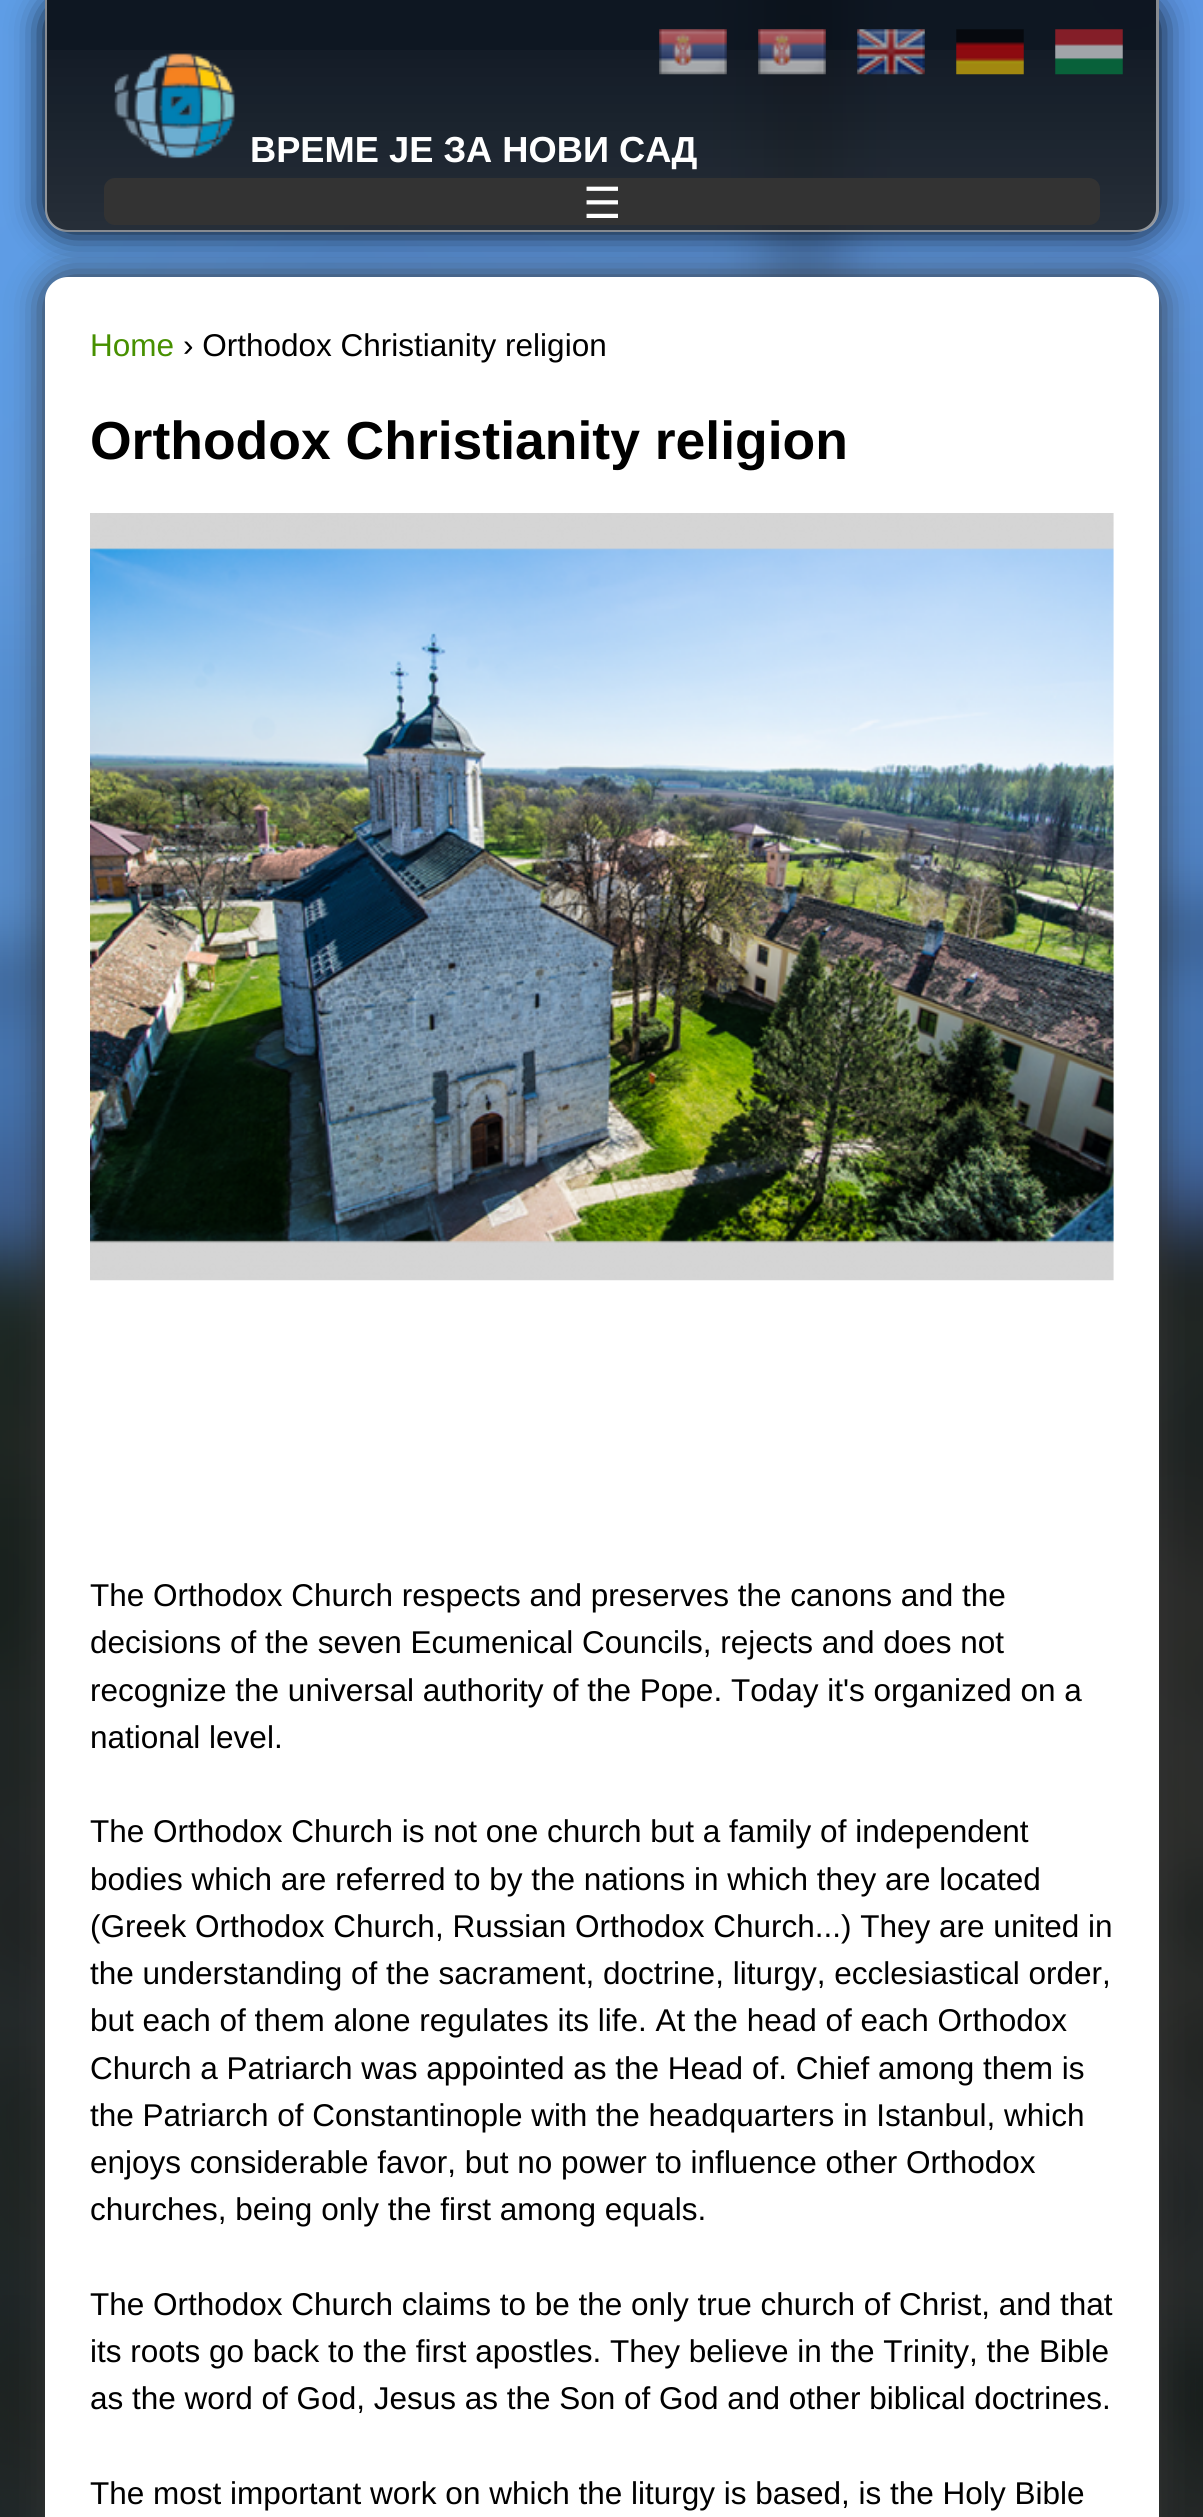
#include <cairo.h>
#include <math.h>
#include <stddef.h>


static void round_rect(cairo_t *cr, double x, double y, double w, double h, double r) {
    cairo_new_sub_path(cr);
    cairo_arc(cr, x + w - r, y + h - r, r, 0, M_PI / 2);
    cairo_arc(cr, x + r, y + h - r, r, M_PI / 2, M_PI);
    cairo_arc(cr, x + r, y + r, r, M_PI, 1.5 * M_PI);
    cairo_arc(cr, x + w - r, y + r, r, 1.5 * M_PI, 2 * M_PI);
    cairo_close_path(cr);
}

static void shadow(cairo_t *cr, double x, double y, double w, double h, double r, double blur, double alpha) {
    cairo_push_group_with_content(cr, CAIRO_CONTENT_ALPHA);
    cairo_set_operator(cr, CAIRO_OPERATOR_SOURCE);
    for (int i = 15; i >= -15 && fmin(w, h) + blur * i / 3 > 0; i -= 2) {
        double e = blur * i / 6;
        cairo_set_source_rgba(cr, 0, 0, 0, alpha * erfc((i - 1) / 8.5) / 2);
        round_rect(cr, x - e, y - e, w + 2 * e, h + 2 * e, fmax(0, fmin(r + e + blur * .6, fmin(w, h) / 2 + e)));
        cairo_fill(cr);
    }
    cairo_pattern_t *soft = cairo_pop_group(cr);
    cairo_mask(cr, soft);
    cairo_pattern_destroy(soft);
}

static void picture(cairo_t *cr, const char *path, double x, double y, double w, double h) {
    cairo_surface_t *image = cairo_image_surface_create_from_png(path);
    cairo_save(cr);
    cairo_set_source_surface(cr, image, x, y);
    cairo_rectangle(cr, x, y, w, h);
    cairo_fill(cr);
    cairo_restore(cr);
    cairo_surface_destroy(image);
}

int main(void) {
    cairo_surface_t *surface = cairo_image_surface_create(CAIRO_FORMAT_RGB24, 1203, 2517);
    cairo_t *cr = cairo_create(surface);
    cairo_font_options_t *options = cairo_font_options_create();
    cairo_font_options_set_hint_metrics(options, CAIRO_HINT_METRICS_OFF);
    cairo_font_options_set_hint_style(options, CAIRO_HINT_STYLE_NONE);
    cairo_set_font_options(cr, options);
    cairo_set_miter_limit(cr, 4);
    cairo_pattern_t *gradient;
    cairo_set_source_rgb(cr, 1, 1, 1);
    cairo_paint(cr);
    picture(cr, "img1.png", 0, 0, 1203, 2517);
    cairo_save(cr);
    cairo_set_fill_rule(cr, CAIRO_FILL_RULE_EVEN_ODD);
    cairo_new_path(cr);
    cairo_move_to(cr, 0, 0);
    cairo_line_to(cr, 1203, 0);
    cairo_line_to(cr, 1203, 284);
    cairo_line_to(cr, 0, 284);
    cairo_close_path(cr);
    cairo_move_to(cr, 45, 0);
    cairo_line_to(cr, 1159, 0);
    cairo_line_to(cr, 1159, 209);
    cairo_curve_to(cr, 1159, 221.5, 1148.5, 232, 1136, 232);
    cairo_line_to(cr, 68, 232);
    cairo_curve_to(cr, 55.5, 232, 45, 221.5, 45, 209);
    cairo_close_path(cr);
    cairo_clip(cr);
    cairo_set_source_rgb(cr, 0, 0, 0);
    shadow(cr, 45, 0, 1114, 232, 23, 17, 1);
    cairo_restore(cr);
    cairo_set_source_rgba(cr, 0, 0, 0, 0.85);
    cairo_new_path(cr);
    cairo_move_to(cr, 45, 0);
    cairo_line_to(cr, 1159, 0);
    cairo_line_to(cr, 1159, 209);
    cairo_curve_to(cr, 1159, 221.5, 1148.5, 232, 1136, 232);
    cairo_line_to(cr, 68, 232);
    cairo_curve_to(cr, 55.5, 232, 45, 221.5, 45, 209);
    cairo_close_path(cr);
    cairo_fill(cr);
    cairo_save(cr);
    cairo_new_path(cr);
    cairo_move_to(cr, 45, 0);
    cairo_line_to(cr, 1159, 0);
    cairo_line_to(cr, 1159, 209);
    cairo_curve_to(cr, 1159, 221.5, 1148.5, 232, 1136, 232);
    cairo_line_to(cr, 68, 232);
    cairo_curve_to(cr, 55.5, 232, 45, 221.5, 45, 209);
    cairo_close_path(cr);
    cairo_clip(cr);
    gradient = cairo_pattern_create_linear(602, 0, 602, 230);
    cairo_pattern_add_color_stop_rgba(gradient, 0, 1, 1, 1, 0);
    cairo_pattern_add_color_stop_rgba(gradient, 1, 1, 1, 1, 0.1);
    cairo_set_source(cr, gradient);
    cairo_pattern_destroy(gradient);
    cairo_rectangle(cr, 45, 50, 1114, 180);
    cairo_fill(cr);
    cairo_restore(cr);
    cairo_set_source_rgba(cr, 1, 1, 1, 0.5);
    cairo_set_fill_rule(cr, CAIRO_FILL_RULE_EVEN_ODD);
    cairo_new_path(cr);
    cairo_move_to(cr, 45, 0);
    cairo_line_to(cr, 1159, 0);
    cairo_line_to(cr, 1159, 209);
    cairo_curve_to(cr, 1159, 222, 1149, 232, 1136, 232);
    cairo_line_to(cr, 68, 232);
    cairo_curve_to(cr, 55, 232, 45, 222, 45, 209);
    cairo_close_path(cr);
    cairo_move_to(cr, 47, 0);
    cairo_line_to(cr, 1156, 0);
    cairo_line_to(cr, 1156, 209);
    cairo_curve_to(cr, 1156, 220, 1147, 230, 1136, 230);
    cairo_line_to(cr, 68, 230);
    cairo_curve_to(cr, 56, 230, 47, 220, 47, 209);
    cairo_close_path(cr);
    cairo_fill(cr);
    picture(cr, "img2.png", 114, 53, 121, 106);
    cairo_select_font_face(cr, "Liberation Sans", CAIRO_FONT_SLANT_NORMAL, CAIRO_FONT_WEIGHT_BOLD);
    cairo_set_font_size(cr, 36.25);
    cairo_set_source_rgb(cr, 1, 1, 1);
    cairo_move_to(cr, 250, 162);
    cairo_show_text(cr, "ВРЕМЕ ЈЕ ЗА НОВИ САД");
    picture(cr, "img3.png", 659, 29, 68, 46);
    picture(cr, "img4.png", 758, 29, 68, 46);
    picture(cr, "img5.png", 857, 29, 68, 46);
    picture(cr, "img6.png", 956, 29, 68, 46);
    picture(cr, "img7.png", 1055, 29, 68, 46);
    cairo_set_source_rgb(cr, 0.2, 0.2, 0.2);
    round_rect(cr, 104, 178, 996, 47, 11);
    cairo_fill(cr);
    cairo_select_font_face(cr, "DejaVu Sans", CAIRO_FONT_SLANT_NORMAL, CAIRO_FONT_WEIGHT_NORMAL);
    cairo_set_font_size(cr, 43);
    cairo_set_source_rgb(cr, 1, 1, 1);
    cairo_move_to(cr, 583, 218);
    cairo_show_text(cr, "☰");
    cairo_set_source_rgb(cr, 0.2, 0.2, 0.2);
    shadow(cr, 45, 277, 1114, 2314, 23, 17, 1);
    cairo_set_source_rgb(cr, 1, 1, 1);
    round_rect(cr, 45, 277, 1114, 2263, 23);
    cairo_fill(cr);
    cairo_select_font_face(cr, "Liberation Sans", CAIRO_FONT_SLANT_NORMAL, CAIRO_FONT_WEIGHT_NORMAL);
    cairo_set_font_size(cr, 31.5);
    cairo_set_source_rgb(cr, 0.278, 0.565, 0);
    cairo_move_to(cr, 90, 356);
    cairo_show_text(cr, "Home");
    cairo_set_source_rgb(cr, 0, 0, 0);
    cairo_move_to(cr, 183, 356);
    cairo_show_text(cr, "› Orthodox Christianity religion");
    cairo_select_font_face(cr, "Liberation Sans", CAIRO_FONT_SLANT_NORMAL, CAIRO_FONT_WEIGHT_BOLD);
    cairo_set_font_size(cr, 53.5);
    cairo_move_to(cr, 90, 459);
    cairo_show_text(cr, "Orthodox Christianity religion");
    picture(cr, "img8.png", 90, 513, 1024, 768);
    cairo_select_font_face(cr, "Liberation Sans", CAIRO_FONT_SLANT_NORMAL, CAIRO_FONT_WEIGHT_NORMAL);
    cairo_set_font_size(cr, 31.5);
    cairo_move_to(cr, 90, 1606);
    cairo_show_text(cr, "The Orthodox Church respects and preserves the canons and the");
    cairo_move_to(cr, 90, 1653);
    cairo_show_text(cr, "decisions of the seven Ecumenical Councils, rejects and does not");
    cairo_move_to(cr, 90, 1701);
    cairo_show_text(cr, "recognize the universal authority of the Pope. Today it's organized on a");
    cairo_move_to(cr, 90, 1748);
    cairo_show_text(cr, "national level.");
    cairo_move_to(cr, 90, 1842);
    cairo_show_text(cr, "The Orthodox Church is not one church but a family of independent");
    cairo_move_to(cr, 90, 1890);
    cairo_show_text(cr, "bodies which are referred to by the nations in which they are located");
    cairo_move_to(cr, 90, 1937);
    cairo_show_text(cr, "(Greek Orthodox Church, Russian Orthodox Church...) They are united in");
    cairo_move_to(cr, 90, 1984);
    cairo_show_text(cr, "the understanding of the sacrament, doctrine, liturgy, ecclesiastical order,");
    cairo_move_to(cr, 90, 2031);
    cairo_show_text(cr, "but each of them alone regulates its life. At the head of each Orthodox");
    cairo_move_to(cr, 90, 2079);
    cairo_show_text(cr, "Church a Patriarch was appointed as the Head of. Chief among them is");
    cairo_move_to(cr, 90, 2126);
    cairo_show_text(cr, "the Patriarch of Constantinople with the headquarters in Istanbul, which");
    cairo_move_to(cr, 90, 2173);
    cairo_show_text(cr, "enjoys considerable favor, but no power to influence other Orthodox");
    cairo_move_to(cr, 90, 2220);
    cairo_show_text(cr, "churches, being only the first among equals.");
    cairo_move_to(cr, 90, 2315);
    cairo_show_text(cr, "The Orthodox Church claims to be the only true church of Christ, and that");
    cairo_move_to(cr, 90, 2362);
    cairo_show_text(cr, "its roots go back to the first apostles. They believe in the Trinity, the Bible");
    cairo_move_to(cr, 90, 2409);
    cairo_show_text(cr, "as the word of God, Jesus as the Son of God and other biblical doctrines.");
    cairo_move_to(cr, 90, 2504);
    cairo_show_text(cr, "The most important work on which the liturgy is based, is the Holy Bible");
    cairo_surface_write_to_png(surface, "page.png");
    cairo_font_options_destroy(options);
    cairo_destroy(cr);
    cairo_surface_destroy(surface);
    return 0;
}
